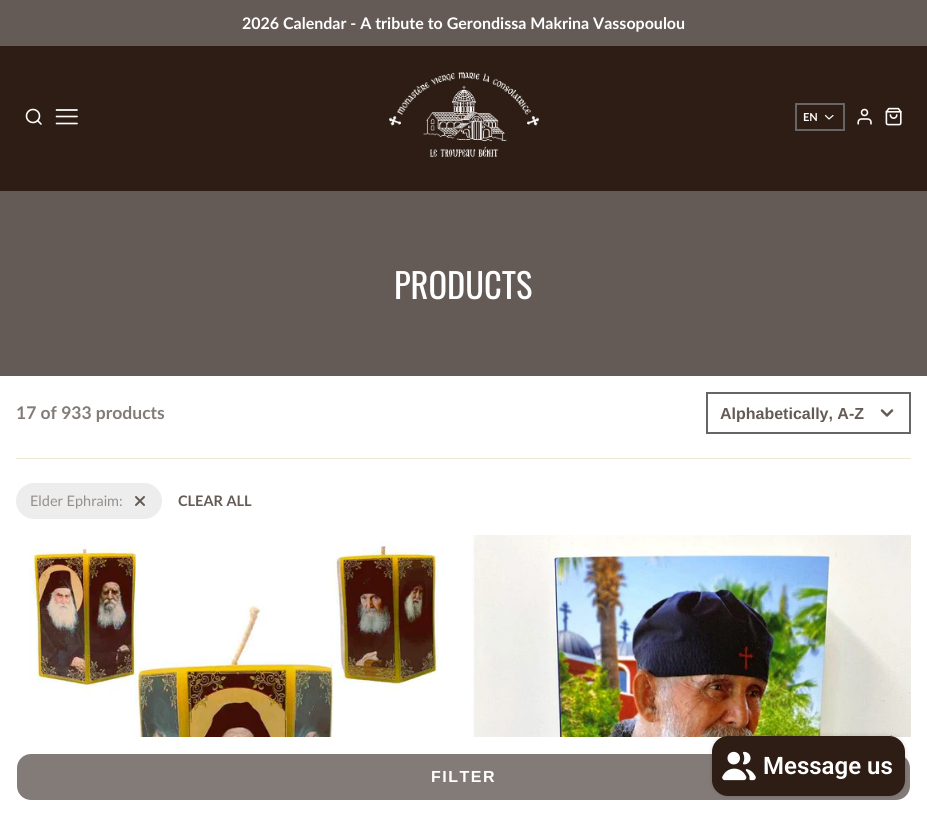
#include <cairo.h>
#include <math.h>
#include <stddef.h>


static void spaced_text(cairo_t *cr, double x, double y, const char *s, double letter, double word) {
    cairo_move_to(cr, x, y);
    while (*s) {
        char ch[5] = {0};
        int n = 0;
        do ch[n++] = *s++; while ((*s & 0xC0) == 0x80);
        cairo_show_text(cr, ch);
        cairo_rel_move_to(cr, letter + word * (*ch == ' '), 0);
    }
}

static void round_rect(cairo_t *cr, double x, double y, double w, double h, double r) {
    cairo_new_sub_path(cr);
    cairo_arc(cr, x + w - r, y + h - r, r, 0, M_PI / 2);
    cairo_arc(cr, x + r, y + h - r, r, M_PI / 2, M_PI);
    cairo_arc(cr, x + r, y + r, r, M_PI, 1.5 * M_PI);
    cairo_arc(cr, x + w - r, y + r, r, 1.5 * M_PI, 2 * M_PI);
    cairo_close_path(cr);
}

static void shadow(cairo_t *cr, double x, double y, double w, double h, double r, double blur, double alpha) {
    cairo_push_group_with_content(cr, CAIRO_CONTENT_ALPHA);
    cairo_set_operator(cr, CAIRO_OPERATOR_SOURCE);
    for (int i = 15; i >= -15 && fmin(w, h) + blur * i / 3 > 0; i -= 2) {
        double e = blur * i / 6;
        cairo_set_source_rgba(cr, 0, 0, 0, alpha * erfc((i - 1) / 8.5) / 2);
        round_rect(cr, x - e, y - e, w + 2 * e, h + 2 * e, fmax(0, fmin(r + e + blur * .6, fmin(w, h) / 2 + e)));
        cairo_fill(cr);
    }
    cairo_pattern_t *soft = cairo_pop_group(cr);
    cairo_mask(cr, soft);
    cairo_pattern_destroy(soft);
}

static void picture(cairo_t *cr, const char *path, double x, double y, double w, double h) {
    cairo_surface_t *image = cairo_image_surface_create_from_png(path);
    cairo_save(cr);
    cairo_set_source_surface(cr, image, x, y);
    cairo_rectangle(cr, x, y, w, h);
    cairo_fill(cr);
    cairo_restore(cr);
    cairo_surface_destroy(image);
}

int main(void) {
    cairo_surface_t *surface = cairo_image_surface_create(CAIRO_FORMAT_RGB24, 927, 817);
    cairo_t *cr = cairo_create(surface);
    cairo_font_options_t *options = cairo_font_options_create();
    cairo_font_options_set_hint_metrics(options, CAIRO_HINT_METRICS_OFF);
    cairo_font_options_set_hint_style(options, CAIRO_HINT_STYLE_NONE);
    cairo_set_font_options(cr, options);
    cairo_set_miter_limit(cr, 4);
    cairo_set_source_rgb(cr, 1, 1, 1);
    cairo_paint(cr);
    cairo_set_source_rgb(cr, 0.392, 0.353, 0.337);
    cairo_rectangle(cr, 0, 0, 927, 46);
    cairo_fill(cr);
    cairo_select_font_face(cr, "Lato", CAIRO_FONT_SLANT_NORMAL, CAIRO_FONT_WEIGHT_BOLD);
    cairo_set_font_size(cr, 16);
    cairo_set_source_rgb(cr, 1, 1, 1);
    cairo_move_to(cr, 242, 29);
    cairo_show_text(cr, "2026 Calendar - A tribute to Gerondissa Makrina Vassopoulou");
    cairo_set_source_rgb(cr, 0.176, 0.114, 0.082);
    cairo_rectangle(cr, 0, 46, 927, 145);
    cairo_fill(cr);
    cairo_arc(cr, 33, 116, 6.5, 0, 2 * M_PI);
    cairo_set_source_rgb(cr, 1, 1, 1);
    cairo_set_line_width(cr, 1.6);
    cairo_stroke(cr);
    cairo_new_path(cr);
    cairo_move_to(cr, 41, 124);
    cairo_line_to(cr, 37.5, 120.5);
    cairo_set_line_cap(cr, CAIRO_LINE_CAP_ROUND);
    cairo_set_line_join(cr, CAIRO_LINE_JOIN_ROUND);
    cairo_stroke(cr);
    cairo_new_path(cr);
    cairo_move_to(cr, 56.5, 116.5);
    cairo_line_to(cr, 77, 116.5);
    cairo_move_to(cr, 56.5, 110);
    cairo_line_to(cr, 77, 110);
    cairo_move_to(cr, 56.5, 123.5);
    cairo_line_to(cr, 77, 123.5);
    cairo_set_line_width(cr, 1.7);
    cairo_stroke(cr);
    picture(cr, "img1.png", 389, 72, 150, 86);
    cairo_rectangle(cr, 796, 104, 48, 26);
    cairo_set_source_rgb(cr, 0.4, 0.4, 0.4);
    cairo_set_line_width(cr, 2);
    cairo_set_line_cap(cr, CAIRO_LINE_CAP_BUTT);
    cairo_set_line_join(cr, CAIRO_LINE_JOIN_MITER);
    cairo_stroke(cr);
    cairo_set_font_size(cr, 11);
    cairo_set_source_rgb(cr, 1, 1, 1);
    cairo_move_to(cr, 803, 121);
    cairo_show_text(cr, "EN");
    cairo_new_path(cr);
    cairo_move_to(cr, 825.5, 115.5);
    cairo_line_to(cr, 829, 119);
    cairo_line_to(cr, 833, 115.5);
    cairo_set_line_width(cr, 1.2);
    cairo_set_line_cap(cr, CAIRO_LINE_CAP_ROUND);
    cairo_set_line_join(cr, CAIRO_LINE_JOIN_ROUND);
    cairo_stroke(cr);
    picture(cr, "img2.png", 857, 108, 15, 17);
    picture(cr, "img3.png", 885, 107, 17, 19);
    cairo_set_source_rgb(cr, 0.392, 0.353, 0.337);
    cairo_rectangle(cr, 0, 191, 927, 185);
    cairo_fill(cr);
    cairo_select_font_face(cr, "Oswald", CAIRO_FONT_SLANT_NORMAL, CAIRO_FONT_WEIGHT_NORMAL);
    cairo_set_font_size(cr, 34.5);
    cairo_set_source_rgb(cr, 1, 1, 1);
    cairo_move_to(cr, 394, 299);
    cairo_show_text(cr, "PRODUCTS");
    cairo_set_source_rgb(cr, 0.945, 0.906, 0.851);
    cairo_rectangle(cr, 16, 458, 895, 1);
    cairo_fill(cr);
    cairo_select_font_face(cr, "Lato", CAIRO_FONT_SLANT_NORMAL, CAIRO_FONT_WEIGHT_BOLD);
    cairo_set_font_size(cr, 17.5);
    cairo_set_source_rgb(cr, 0.514, 0.482, 0.471);
    cairo_move_to(cr, 16, 419);
    cairo_show_text(cr, "17 of 933 products");
    cairo_rectangle(cr, 707, 393, 203, 40);
    cairo_set_source_rgb(cr, 0.4, 0.4, 0.4);
    cairo_set_line_width(cr, 2);
    cairo_set_line_cap(cr, CAIRO_LINE_CAP_BUTT);
    cairo_set_line_join(cr, CAIRO_LINE_JOIN_MITER);
    cairo_stroke(cr);
    cairo_save(cr);
    cairo_rectangle(cr, 720, 405, 145, 17);
    cairo_clip(cr);
    cairo_select_font_face(cr, "Liberation Sans", CAIRO_FONT_SLANT_NORMAL, CAIRO_FONT_WEIGHT_BOLD);
    cairo_set_font_size(cr, 16);
    cairo_set_source_rgb(cr, 0.392, 0.353, 0.337);
    cairo_move_to(cr, 720, 419);
    cairo_show_text(cr, "Alphabetically, A-Z");
    cairo_restore(cr);
    cairo_new_path(cr);
    cairo_move_to(cr, 882, 410.5);
    cairo_line_to(cr, 887, 415.5);
    cairo_line_to(cr, 892, 410.5);
    cairo_set_source_rgb(cr, 0.392, 0.353, 0.337);
    cairo_set_line_width(cr, 2.5);
    cairo_set_line_cap(cr, CAIRO_LINE_CAP_ROUND);
    cairo_set_line_join(cr, CAIRO_LINE_JOIN_ROUND);
    cairo_stroke(cr);
    cairo_set_source_rgb(cr, 0.929, 0.929, 0.929);
    round_rect(cr, 16, 483, 146, 36, 18);
    cairo_fill(cr);
    cairo_select_font_face(cr, "Lato", CAIRO_FONT_SLANT_NORMAL, CAIRO_FONT_WEIGHT_NORMAL);
    cairo_set_font_size(cr, 14.5);
    cairo_set_source_rgb(cr, 0.584, 0.561, 0.549);
    cairo_move_to(cr, 30, 506);
    cairo_show_text(cr, "Elder Ephraim:");
    cairo_new_path(cr);
    cairo_move_to(cr, 144, 497);
    cairo_line_to(cr, 136, 505);
    cairo_move_to(cr, 136, 497);
    cairo_line_to(cr, 144, 505);
    cairo_set_source_rgb(cr, 0.392, 0.353, 0.337);
    cairo_set_line_width(cr, 2);
    cairo_stroke(cr);
    cairo_select_font_face(cr, "Lato", CAIRO_FONT_SLANT_NORMAL, CAIRO_FONT_WEIGHT_BOLD);
    cairo_move_to(cr, 178, 506);
    cairo_show_text(cr, "CLEAR ALL");
    picture(cr, "img4.png", 29, 542, 410, 195);
    picture(cr, "img5.png", 472, 535, 439, 202);
    cairo_set_source_rgb(cr, 0.514, 0.482, 0.471);
    round_rect(cr, 17, 754, 893, 46, 14);
    cairo_fill(cr);
    cairo_select_font_face(cr, "Liberation Sans", CAIRO_FONT_SLANT_NORMAL, CAIRO_FONT_WEIGHT_BOLD);
    cairo_set_font_size(cr, 16);
    cairo_set_source_rgb(cr, 1, 1, 1);
    spaced_text(cr, 431, 782, "FILTER", 1.5, 0);
    cairo_set_source_rgb(cr, 0, 0, 0);
    shadow(cr, 712, 736, 193, 60, 16, 2.5, 0.15);
    cairo_set_source_rgb(cr, 0.176, 0.114, 0.082);
    round_rect(cr, 712, 736, 193, 60, 16);
    cairo_fill(cr);
    picture(cr, "img6.png", 722, 751, 34, 30);
    cairo_select_font_face(cr, "Roboto SemiBold", CAIRO_FONT_SLANT_NORMAL, CAIRO_FONT_WEIGHT_NORMAL);
    cairo_set_font_size(cr, 24);
    cairo_set_source_rgb(cr, 1, 1, 1);
    cairo_move_to(cr, 763, 774);
    cairo_show_text(cr, "Message us");
    cairo_surface_write_to_png(surface, "page.png");
    cairo_font_options_destroy(options);
    cairo_destroy(cr);
    cairo_surface_destroy(surface);
    return 0;
}
